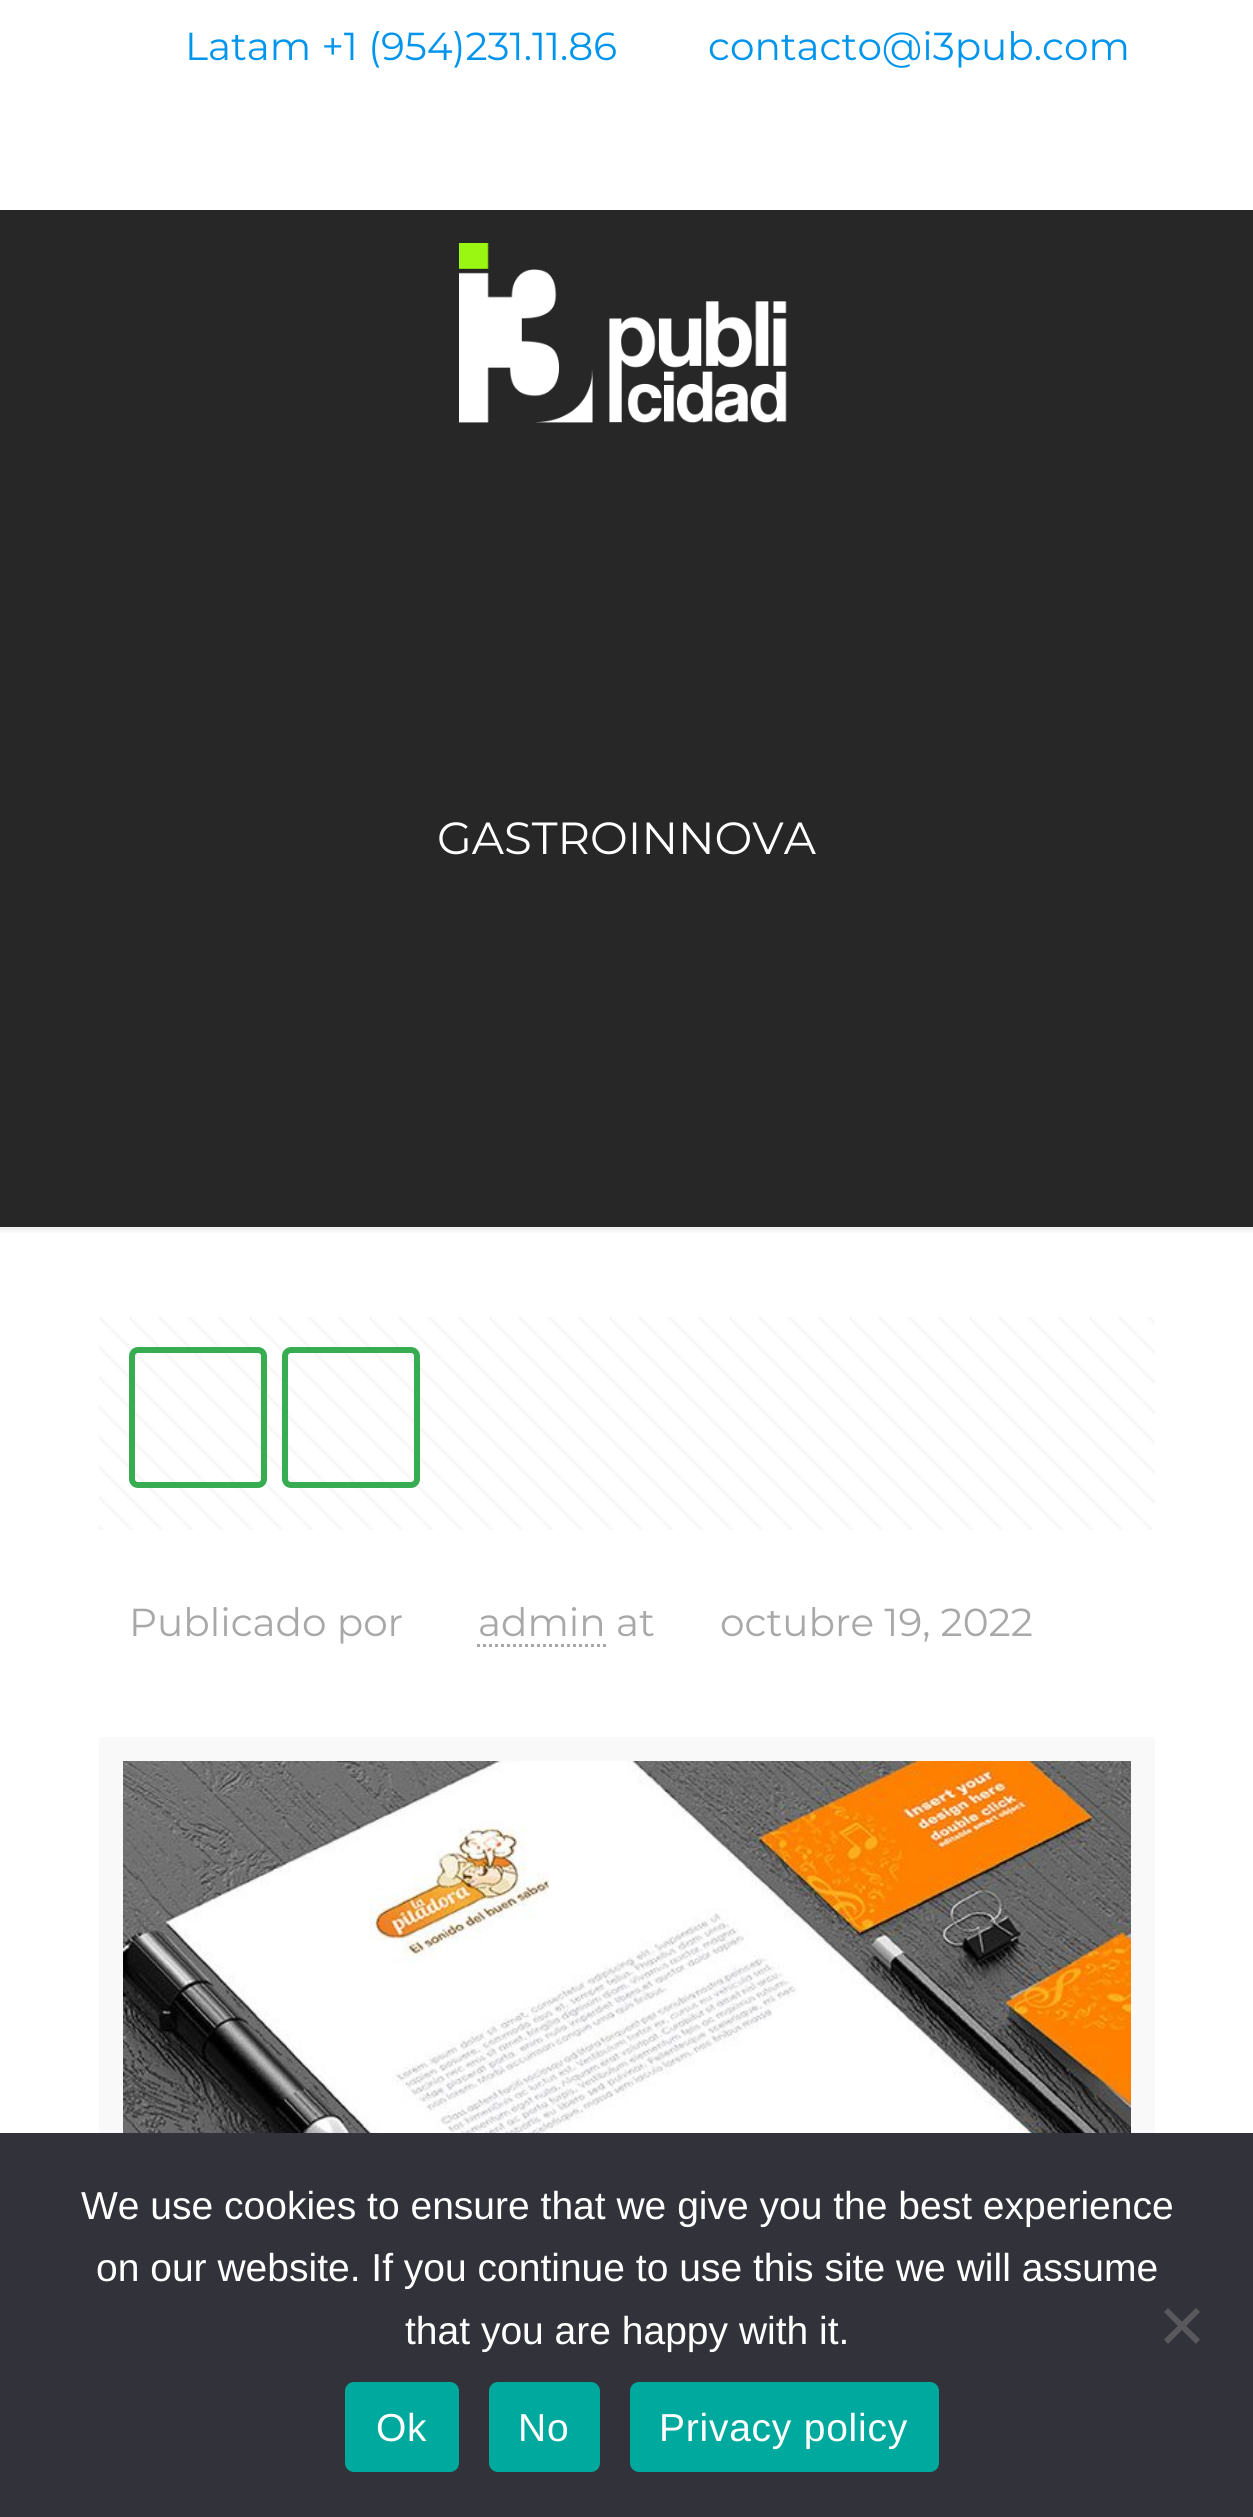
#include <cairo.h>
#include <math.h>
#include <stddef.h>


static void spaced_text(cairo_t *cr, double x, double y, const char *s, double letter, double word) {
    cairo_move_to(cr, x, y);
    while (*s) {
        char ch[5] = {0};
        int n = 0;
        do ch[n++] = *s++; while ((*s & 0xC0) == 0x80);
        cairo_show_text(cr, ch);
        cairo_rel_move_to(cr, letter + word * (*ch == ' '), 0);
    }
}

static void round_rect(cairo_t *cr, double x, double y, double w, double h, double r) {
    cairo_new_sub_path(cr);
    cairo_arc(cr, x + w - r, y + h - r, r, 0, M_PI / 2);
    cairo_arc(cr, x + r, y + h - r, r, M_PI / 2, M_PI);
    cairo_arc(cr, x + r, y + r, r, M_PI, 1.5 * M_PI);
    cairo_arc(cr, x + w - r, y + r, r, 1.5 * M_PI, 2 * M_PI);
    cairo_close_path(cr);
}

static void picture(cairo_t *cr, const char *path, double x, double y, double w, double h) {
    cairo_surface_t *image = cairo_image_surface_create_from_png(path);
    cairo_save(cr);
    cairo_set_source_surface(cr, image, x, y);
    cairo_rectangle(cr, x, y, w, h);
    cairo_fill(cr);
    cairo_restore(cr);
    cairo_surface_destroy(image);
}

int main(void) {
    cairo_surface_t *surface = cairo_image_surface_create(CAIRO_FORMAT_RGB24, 1253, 2517);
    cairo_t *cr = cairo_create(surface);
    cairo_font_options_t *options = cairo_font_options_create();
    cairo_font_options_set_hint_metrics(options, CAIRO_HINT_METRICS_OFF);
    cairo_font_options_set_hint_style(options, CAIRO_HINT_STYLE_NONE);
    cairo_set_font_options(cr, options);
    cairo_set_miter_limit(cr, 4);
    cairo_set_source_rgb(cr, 1, 1, 1);
    cairo_paint(cr);
    cairo_set_source_rgb(cr, 0.153, 0.153, 0.153);
    cairo_rectangle(cr, 0, 210, 1253, 1017);
    cairo_fill(cr);
    cairo_select_font_face(cr, "Montserrat", CAIRO_FONT_SLANT_NORMAL, CAIRO_FONT_WEIGHT_NORMAL);
    cairo_set_font_size(cr, 39);
    cairo_set_source_rgb(cr, 0, 0.584, 0.922);
    cairo_move_to(cr, 185, 60);
    cairo_show_text(cr, "Latam +1 (954)231.11.86");
    cairo_move_to(cr, 708, 60);
    cairo_show_text(cr, "contacto@i3pub.com");
    picture(cr, "img1.png", 459, 243, 328, 180);
    cairo_set_font_size(cr, 45);
    cairo_set_source_rgb(cr, 1, 1, 1);
    cairo_move_to(cr, 437, 854);
    cairo_show_text(cr, "GASTROINNOVA");
    picture(cr, "img2.png", 0, 1227, 1253, 6);
    picture(cr, "img3.png", 99, 1317, 1056, 213);
    round_rect(cr, 132, 1350, 132, 135, 6);
    cairo_set_source_rgb(cr, 0.216, 0.675, 0.314);
    cairo_set_line_width(cr, 6);
    cairo_stroke(cr);
    round_rect(cr, 285, 1350, 132, 135, 6);
    cairo_stroke(cr);
    cairo_set_font_size(cr, 39);
    cairo_set_source_rgb(cr, 0.659, 0.659, 0.659);
    cairo_move_to(cr, 129, 1636);
    cairo_show_text(cr, "Publicado por");
    cairo_move_to(cr, 478, 1636);
    cairo_show_text(cr, "admin at");
    cairo_new_path(cr);
    cairo_move_to(cr, 477, 1645.5);
    cairo_line_to(cr, 606, 1645.5);
    cairo_set_line_width(cr, 3);
    cairo_set_dash(cr, (double[]){3, 3}, 2, 0);
    cairo_stroke(cr);
    cairo_move_to(cr, 720, 1636);
    cairo_show_text(cr, "octubre 19, 2022");
    cairo_rectangle(cr, 111, 1749, 1032, 669);
    cairo_set_source_rgb(cr, 0.973, 0.973, 0.973);
    cairo_set_line_width(cr, 24);
    cairo_set_dash(cr, NULL, 0, 0);
    cairo_stroke(cr);
    picture(cr, "img4.png", 123, 1761, 1008, 372);
    cairo_set_source_rgb(cr, 0.196, 0.196, 0.227);
    cairo_rectangle(cr, 0, 2133, 1253, 384);
    cairo_fill(cr);
    cairo_select_font_face(cr, "Liberation Sans", CAIRO_FONT_SLANT_NORMAL, CAIRO_FONT_WEIGHT_NORMAL);
    cairo_set_source_rgb(cr, 1, 1, 1);
    cairo_move_to(cr, 81, 2219);
    cairo_show_text(cr, "We use cookies to ensure that we give you the best experience");
    cairo_move_to(cr, 96, 2281);
    cairo_show_text(cr, "on our website. If you continue to use this site we will assume");
    cairo_move_to(cr, 405, 2344);
    cairo_show_text(cr, "that you are happy with it.");
    cairo_set_source_rgb(cr, 0.349, 0.349, 0.365);
    cairo_new_path(cr);
    cairo_move_to(cr, 1196, 2308);
    cairo_line_to(cr, 1200, 2312);
    cairo_line_to(cr, 1168, 2344);
    cairo_line_to(cr, 1164, 2339.5);
    cairo_close_path(cr);
    cairo_fill(cr);
    cairo_new_path(cr);
    cairo_move_to(cr, 1164, 2312);
    cairo_line_to(cr, 1168, 2308);
    cairo_line_to(cr, 1200, 2339.5);
    cairo_line_to(cr, 1196, 2344);
    cairo_close_path(cr);
    cairo_fill(cr);
    cairo_set_source_rgb(cr, 0, 0.663, 0.616);
    round_rect(cr, 345, 2382, 114, 90, 9);
    cairo_fill(cr);
    cairo_set_source_rgb(cr, 1, 1, 1);
    spaced_text(cr, 376, 2441, "Ok", 0.75, 0);
    cairo_set_source_rgb(cr, 0, 0.663, 0.616);
    round_rect(cr, 489, 2382, 111, 90, 9);
    cairo_fill(cr);
    cairo_set_source_rgb(cr, 1, 1, 1);
    spaced_text(cr, 518, 2441, "No", 0.75, 0);
    cairo_set_source_rgb(cr, 0, 0.663, 0.616);
    round_rect(cr, 630, 2382, 309, 90, 9);
    cairo_fill(cr);
    cairo_set_source_rgb(cr, 1, 1, 1);
    spaced_text(cr, 659, 2441, "Privacy policy", 0.75, 0);
    cairo_surface_write_to_png(surface, "page.png");
    cairo_font_options_destroy(options);
    cairo_destroy(cr);
    cairo_surface_destroy(surface);
    return 0;
}
